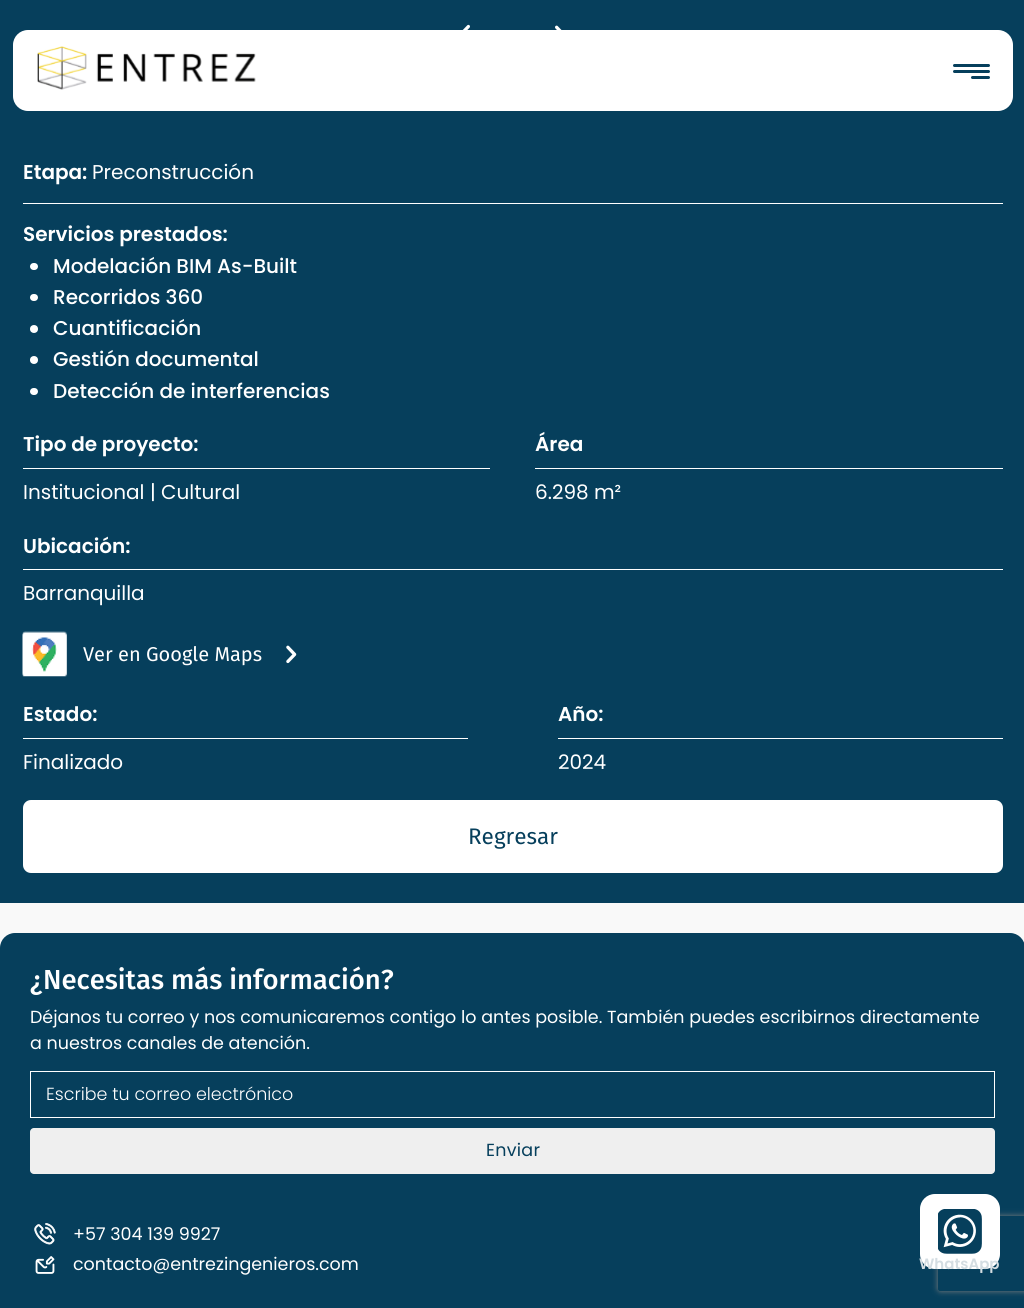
#include <cairo.h>
#include <math.h>
#include <stddef.h>


static void spaced_text(cairo_t *cr, double x, double y, const char *s, double letter, double word) {
    cairo_move_to(cr, x, y);
    while (*s) {
        char ch[5] = {0};
        int n = 0;
        do ch[n++] = *s++; while ((*s & 0xC0) == 0x80);
        cairo_show_text(cr, ch);
        cairo_rel_move_to(cr, letter + word * (*ch == ' '), 0);
    }
}

static void round_rect(cairo_t *cr, double x, double y, double w, double h, double r) {
    cairo_new_sub_path(cr);
    cairo_arc(cr, x + w - r, y + h - r, r, 0, M_PI / 2);
    cairo_arc(cr, x + r, y + h - r, r, M_PI / 2, M_PI);
    cairo_arc(cr, x + r, y + r, r, M_PI, 1.5 * M_PI);
    cairo_arc(cr, x + w - r, y + r, r, 1.5 * M_PI, 2 * M_PI);
    cairo_close_path(cr);
}

static void shadow(cairo_t *cr, double x, double y, double w, double h, double r, double blur, double alpha) {
    cairo_push_group_with_content(cr, CAIRO_CONTENT_ALPHA);
    cairo_set_operator(cr, CAIRO_OPERATOR_SOURCE);
    for (int i = 15; i >= -15 && fmin(w, h) + blur * i / 3 > 0; i -= 2) {
        double e = blur * i / 6;
        cairo_set_source_rgba(cr, 0, 0, 0, alpha * erfc((i - 1) / 8.5) / 2);
        round_rect(cr, x - e, y - e, w + 2 * e, h + 2 * e, fmax(0, fmin(r + e + blur * .6, fmin(w, h) / 2 + e)));
        cairo_fill(cr);
    }
    cairo_pattern_t *soft = cairo_pop_group(cr);
    cairo_mask(cr, soft);
    cairo_pattern_destroy(soft);
}

static void picture(cairo_t *cr, const char *path, double x, double y, double w, double h) {
    cairo_surface_t *image = cairo_image_surface_create_from_png(path);
    cairo_save(cr);
    cairo_set_source_surface(cr, image, x, y);
    cairo_rectangle(cr, x, y, w, h);
    cairo_fill(cr);
    cairo_restore(cr);
    cairo_surface_destroy(image);
}

int main(void) {
    cairo_surface_t *surface = cairo_image_surface_create(CAIRO_FORMAT_RGB24, 1024, 1308);
    cairo_t *cr = cairo_create(surface);
    cairo_font_options_t *options = cairo_font_options_create();
    cairo_font_options_set_hint_metrics(options, CAIRO_HINT_METRICS_OFF);
    cairo_font_options_set_hint_style(options, CAIRO_HINT_STYLE_NONE);
    cairo_set_font_options(cr, options);
    cairo_set_miter_limit(cr, 4);
    cairo_set_source_rgb(cr, 0.976, 0.976, 0.976);
    cairo_paint(cr);
    cairo_set_source_rgb(cr, 0.024, 0.247, 0.361);
    cairo_rectangle(cr, 0, 0, 1024, 903);
    cairo_fill(cr);
    cairo_set_source_rgb(cr, 1, 1, 1);
    round_rect(cr, 13, 30, 1000, 81, 15);
    cairo_fill(cr);
    picture(cr, "img1.png", 37, 46, 219, 44);
    cairo_set_source_rgb(cr, 0.024, 0.247, 0.361);
    round_rect(cr, 953, 64, 37, 3, 1.5);
    cairo_fill(cr);
    round_rect(cr, 953, 70, 37, 3, 1.5);
    cairo_fill(cr);
    round_rect(cr, 971, 76, 19, 3, 1.5);
    cairo_fill(cr);
    picture(cr, "img2.png", 462, 24, 8, 6);
    picture(cr, "img3.png", 555, 25, 7, 5);
    cairo_select_font_face(cr, "Poppins SemiBold", CAIRO_FONT_SLANT_NORMAL, CAIRO_FONT_WEIGHT_NORMAL);
    cairo_set_font_size(cr, 20);
    cairo_set_source_rgb(cr, 1, 1, 1);
    cairo_move_to(cr, 23, 179);
    cairo_show_text(cr, "Etapa:");
    cairo_select_font_face(cr, "Poppins", CAIRO_FONT_SLANT_NORMAL, CAIRO_FONT_WEIGHT_NORMAL);
    cairo_move_to(cr, 92, 179);
    cairo_show_text(cr, "Preconstrucción");
    cairo_rectangle(cr, 23, 203, 980, 1);
    cairo_fill(cr);
    cairo_select_font_face(cr, "Poppins SemiBold", CAIRO_FONT_SLANT_NORMAL, CAIRO_FONT_WEIGHT_NORMAL);
    cairo_move_to(cr, 23, 241);
    cairo_show_text(cr, "Servicios prestados:");
    round_rect(cr, 30, 263, 8, 7, 3.5);
    cairo_fill(cr);
    cairo_select_font_face(cr, "Poppins Medium", CAIRO_FONT_SLANT_NORMAL, CAIRO_FONT_WEIGHT_NORMAL);
    cairo_move_to(cr, 53, 273);
    cairo_show_text(cr, "Modelación BIM As-Built");
    round_rect(cr, 30, 294, 8, 7, 3.5);
    cairo_fill(cr);
    cairo_move_to(cr, 53, 304);
    cairo_show_text(cr, "Recorridos 360");
    cairo_new_path(cr);
    cairo_arc(cr, 34, 329, 4, 0, 2 * M_PI);
    cairo_fill(cr);
    cairo_move_to(cr, 53, 335);
    cairo_show_text(cr, "Cuantificación");
    cairo_new_path(cr);
    cairo_arc(cr, 34, 360, 4, 0, 2 * M_PI);
    cairo_fill(cr);
    cairo_move_to(cr, 53, 366);
    cairo_show_text(cr, "Gestión documental");
    round_rect(cr, 30, 388, 8, 7, 3.5);
    cairo_fill(cr);
    cairo_move_to(cr, 53, 398);
    cairo_show_text(cr, "Detección de interferencias");
    cairo_select_font_face(cr, "Poppins SemiBold", CAIRO_FONT_SLANT_NORMAL, CAIRO_FONT_WEIGHT_NORMAL);
    cairo_move_to(cr, 23, 451);
    cairo_show_text(cr, "Tipo de proyecto:");
    cairo_rectangle(cr, 23, 468, 467, 1);
    cairo_fill(cr);
    cairo_select_font_face(cr, "Poppins", CAIRO_FONT_SLANT_NORMAL, CAIRO_FONT_WEIGHT_NORMAL);
    cairo_move_to(cr, 23, 499);
    cairo_show_text(cr, "Institucional | Cultural");
    cairo_select_font_face(cr, "Poppins SemiBold", CAIRO_FONT_SLANT_NORMAL, CAIRO_FONT_WEIGHT_NORMAL);
    cairo_move_to(cr, 535, 451);
    cairo_show_text(cr, "Área");
    cairo_rectangle(cr, 535, 468, 468, 1);
    cairo_fill(cr);
    cairo_select_font_face(cr, "Poppins", CAIRO_FONT_SLANT_NORMAL, CAIRO_FONT_WEIGHT_NORMAL);
    cairo_move_to(cr, 535, 499);
    cairo_show_text(cr, "6.298 m²");
    cairo_select_font_face(cr, "Poppins SemiBold", CAIRO_FONT_SLANT_NORMAL, CAIRO_FONT_WEIGHT_NORMAL);
    cairo_move_to(cr, 23, 553);
    cairo_show_text(cr, "Ubicación:");
    cairo_rectangle(cr, 23, 569, 980, 1);
    cairo_fill(cr);
    cairo_select_font_face(cr, "Poppins", CAIRO_FONT_SLANT_NORMAL, CAIRO_FONT_WEIGHT_NORMAL);
    cairo_move_to(cr, 23, 600);
    cairo_show_text(cr, "Barranquilla");
    picture(cr, "img4.png", 22, 631, 46, 46);
    cairo_select_font_face(cr, "Fira Sans", CAIRO_FONT_SLANT_NORMAL, CAIRO_FONT_WEIGHT_NORMAL);
    cairo_move_to(cr, 83, 661);
    cairo_show_text(cr, "Ver en Google Maps");
    picture(cr, "img5.png", 286, 645, 11, 19);
    cairo_select_font_face(cr, "Poppins SemiBold", CAIRO_FONT_SLANT_NORMAL, CAIRO_FONT_WEIGHT_NORMAL);
    cairo_move_to(cr, 23, 721);
    cairo_show_text(cr, "Estado:");
    cairo_rectangle(cr, 23, 738, 445, 1);
    cairo_fill(cr);
    cairo_select_font_face(cr, "Poppins", CAIRO_FONT_SLANT_NORMAL, CAIRO_FONT_WEIGHT_NORMAL);
    cairo_move_to(cr, 23, 769);
    cairo_show_text(cr, "Finalizado");
    cairo_select_font_face(cr, "Poppins SemiBold", CAIRO_FONT_SLANT_NORMAL, CAIRO_FONT_WEIGHT_NORMAL);
    cairo_move_to(cr, 558, 721);
    cairo_show_text(cr, "Año:");
    cairo_rectangle(cr, 558, 738, 445, 1);
    cairo_fill(cr);
    cairo_select_font_face(cr, "Poppins", CAIRO_FONT_SLANT_NORMAL, CAIRO_FONT_WEIGHT_NORMAL);
    cairo_move_to(cr, 558, 769);
    cairo_show_text(cr, "2024");
    round_rect(cr, 23, 800, 980, 73, 8);
    cairo_fill(cr);
    cairo_select_font_face(cr, "Fira Sans", CAIRO_FONT_SLANT_NORMAL, CAIRO_FONT_WEIGHT_NORMAL);
    cairo_set_font_size(cr, 22.5);
    cairo_set_source_rgb(cr, 0.024, 0.247, 0.361);
    cairo_move_to(cr, 468, 844);
    cairo_show_text(cr, "Regresar");
    round_rect(cr, 0, 933, 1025, 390, 15);
    cairo_fill(cr);
    cairo_select_font_face(cr, "Fira Sans Medium", CAIRO_FONT_SLANT_NORMAL, CAIRO_FONT_WEIGHT_NORMAL);
    cairo_set_font_size(cr, 27.5);
    cairo_set_source_rgb(cr, 1, 1, 1);
    cairo_move_to(cr, 30, 989);
    cairo_show_text(cr, "¿Necesitas más información?");
    cairo_select_font_face(cr, "Poppins", CAIRO_FONT_SLANT_NORMAL, CAIRO_FONT_WEIGHT_NORMAL);
    cairo_set_font_size(cr, 17.5);
    cairo_move_to(cr, 30, 1023);
    cairo_show_text(cr, "Déjanos tu correo y nos comunicaremos contigo lo antes posible. También puedes escribirnos directamente");
    cairo_move_to(cr, 30, 1049);
    cairo_show_text(cr, "a nuestros canales de atención.");
    cairo_rectangle(cr, 30.5, 1071.5, 964, 46);
    cairo_set_line_width(cr, 1);
    cairo_stroke(cr);
    cairo_select_font_face(cr, "Poppins Light", CAIRO_FONT_SLANT_NORMAL, CAIRO_FONT_WEIGHT_NORMAL);
    cairo_move_to(cr, 46, 1100);
    cairo_show_text(cr, "Escribe tu correo electrónico");
    cairo_set_source_rgb(cr, 0.937, 0.937, 0.937);
    round_rect(cr, 30, 1128, 965, 46, 4);
    cairo_fill(cr);
    cairo_select_font_face(cr, "Poppins", CAIRO_FONT_SLANT_NORMAL, CAIRO_FONT_WEIGHT_NORMAL);
    cairo_set_source_rgb(cr, 0.024, 0.247, 0.361);
    spaced_text(cr, 486, 1156, "Enviar", 0.25, 0);
    picture(cr, "img6.png", 34, 1223, 22, 22);
    cairo_set_source_rgb(cr, 1, 1, 1);
    cairo_move_to(cr, 73, 1240);
    cairo_show_text(cr, "+57 304 139 9927");
    picture(cr, "img7.png", 35, 1256, 20, 18);
    cairo_move_to(cr, 73, 1270);
    cairo_show_text(cr, "contacto@entrezingenieros.com");
    cairo_save(cr);
    cairo_set_fill_rule(cr, CAIRO_FILL_RULE_EVEN_ODD);
    cairo_new_path(cr);
    cairo_move_to(cr, 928, 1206);
    cairo_line_to(cr, 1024, 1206);
    cairo_line_to(cr, 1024, 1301);
    cairo_line_to(cr, 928, 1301);
    cairo_close_path(cr);
    cairo_move_to(cr, 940.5, 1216);
    cairo_line_to(cr, 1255.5, 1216);
    cairo_curve_to(cr, 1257, 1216, 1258, 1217, 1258, 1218.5);
    cairo_line_to(cr, 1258, 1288.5);
    cairo_curve_to(cr, 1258, 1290, 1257, 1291, 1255.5, 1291);
    cairo_line_to(cr, 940.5, 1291);
    cairo_curve_to(cr, 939, 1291, 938, 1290, 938, 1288.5);
    cairo_line_to(cr, 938, 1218.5);
    cairo_curve_to(cr, 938, 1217, 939, 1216, 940.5, 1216);
    cairo_close_path(cr);
    cairo_clip(cr);
    cairo_set_source_rgb(cr, 0.502, 0.502, 0.502);
    shadow(cr, 938, 1216, 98, 75, 2.5, 3, 1);
    cairo_restore(cr);
    round_rect(cr, 920, 1194, 80, 75, 15);
    cairo_fill(cr);
    picture(cr, "img8.png", 938, 1209, 44, 45);
    cairo_select_font_face(cr, "Poppins SemiBold", CAIRO_FONT_SLANT_NORMAL, CAIRO_FONT_WEIGHT_NORMAL);
    cairo_set_font_size(cr, 15);
    cairo_set_source_rgb(cr, 0.831, 0.867, 0.886);
    cairo_move_to(cr, 919, 1269);
    cairo_show_text(cr, "WhatsApp");
    cairo_surface_write_to_png(surface, "page.png");
    cairo_font_options_destroy(options);
    cairo_destroy(cr);
    cairo_surface_destroy(surface);
    return 0;
}
